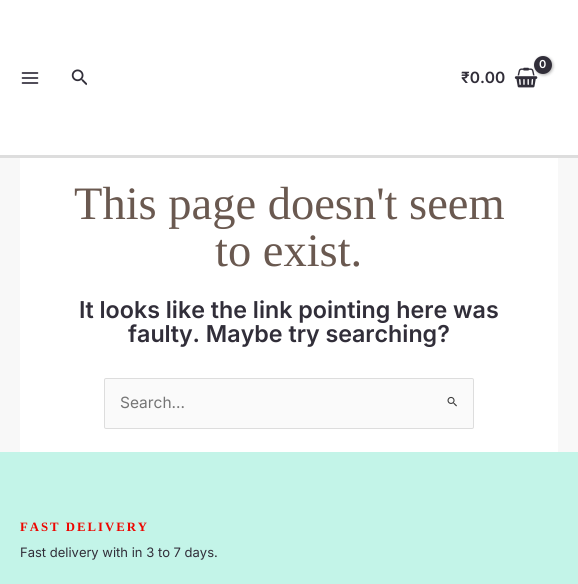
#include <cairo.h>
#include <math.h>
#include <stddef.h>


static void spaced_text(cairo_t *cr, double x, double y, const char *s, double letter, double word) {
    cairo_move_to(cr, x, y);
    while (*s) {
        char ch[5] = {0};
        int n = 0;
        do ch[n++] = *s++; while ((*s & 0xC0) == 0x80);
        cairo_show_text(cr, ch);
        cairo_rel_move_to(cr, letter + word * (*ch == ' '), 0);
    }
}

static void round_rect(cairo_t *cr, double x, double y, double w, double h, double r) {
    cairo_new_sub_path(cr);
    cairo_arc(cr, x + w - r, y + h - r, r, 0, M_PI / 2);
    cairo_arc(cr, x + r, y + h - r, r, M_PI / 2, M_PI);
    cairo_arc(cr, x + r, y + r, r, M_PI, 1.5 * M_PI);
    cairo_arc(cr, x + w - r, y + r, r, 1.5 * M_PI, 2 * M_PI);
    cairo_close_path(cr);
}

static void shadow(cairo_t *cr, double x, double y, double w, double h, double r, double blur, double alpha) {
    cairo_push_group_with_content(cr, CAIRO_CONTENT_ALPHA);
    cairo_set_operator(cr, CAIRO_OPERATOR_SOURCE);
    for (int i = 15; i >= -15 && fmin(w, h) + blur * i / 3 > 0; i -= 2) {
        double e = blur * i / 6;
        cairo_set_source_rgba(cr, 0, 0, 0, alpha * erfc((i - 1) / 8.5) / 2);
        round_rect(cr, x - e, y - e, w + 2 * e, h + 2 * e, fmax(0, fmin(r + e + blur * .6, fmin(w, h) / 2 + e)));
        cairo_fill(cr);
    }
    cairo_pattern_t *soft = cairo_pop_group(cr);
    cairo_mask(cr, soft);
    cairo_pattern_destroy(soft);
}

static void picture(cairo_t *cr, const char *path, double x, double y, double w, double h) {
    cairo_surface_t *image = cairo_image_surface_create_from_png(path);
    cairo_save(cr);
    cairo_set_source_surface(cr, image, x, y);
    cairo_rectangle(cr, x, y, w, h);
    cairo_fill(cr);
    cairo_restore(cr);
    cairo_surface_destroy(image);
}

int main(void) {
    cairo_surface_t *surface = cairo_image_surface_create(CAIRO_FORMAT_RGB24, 578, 584);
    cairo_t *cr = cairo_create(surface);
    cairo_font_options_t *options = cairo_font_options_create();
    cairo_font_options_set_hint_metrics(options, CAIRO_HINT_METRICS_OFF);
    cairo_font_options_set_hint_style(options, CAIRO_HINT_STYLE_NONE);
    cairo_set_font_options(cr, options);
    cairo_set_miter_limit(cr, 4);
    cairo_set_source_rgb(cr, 0.969, 0.969, 0.969);
    cairo_paint(cr);
    cairo_set_source_rgb(cr, 1, 1, 1);
    cairo_rectangle(cr, 0, 0, 578, 155);
    cairo_fill(cr);
    cairo_set_source_rgb(cr, 0.867, 0.867, 0.867);
    cairo_rectangle(cr, 0, 155, 578, 3);
    cairo_fill(cr);
    picture(cr, "img1.png", 21, 72, 18, 12);
    picture(cr, "img2.png", 71, 69, 16, 17);
    picture(cr, "img3.png", 514, 67, 24, 21);
    cairo_set_source_rgb(cr, 0, 0, 0);
    shadow(cr, 535, 57, 18, 18, 9, 1.5, 0.3);
    cairo_set_source_rgb(cr, 0.192, 0.18, 0.224);
    cairo_arc(cr, 543, 65, 9, 0, 2 * M_PI);
    cairo_fill(cr);
    cairo_select_font_face(cr, "Inter SemiBold", CAIRO_FONT_SLANT_NORMAL, CAIRO_FONT_WEIGHT_NORMAL);
    cairo_set_font_size(cr, 11);
    cairo_set_source_rgb(cr, 1, 1, 1);
    cairo_move_to(cr, 539, 68);
    cairo_show_text(cr, "0");
    cairo_set_font_size(cr, 15.5);
    cairo_set_source_rgb(cr, 0.192, 0.18, 0.224);
    cairo_move_to(cr, 461, 83);
    cairo_show_text(cr, "₹0.00");
    cairo_set_source_rgb(cr, 1, 1, 1);
    cairo_rectangle(cr, 20, 158, 538, 294);
    cairo_fill(cr);
    cairo_select_font_face(cr, "Liberation Serif", CAIRO_FONT_SLANT_NORMAL, CAIRO_FONT_WEIGHT_NORMAL);
    cairo_set_font_size(cr, 46.5);
    cairo_set_source_rgb(cr, 0.416, 0.349, 0.314);
    cairo_move_to(cr, 74, 219);
    cairo_show_text(cr, "This page doesn't seem");
    cairo_move_to(cr, 215, 266);
    cairo_show_text(cr, "to exist.");
    cairo_select_font_face(cr, "Inter SemiBold", CAIRO_FONT_SLANT_NORMAL, CAIRO_FONT_WEIGHT_NORMAL);
    cairo_set_font_size(cr, 23.25);
    cairo_set_source_rgb(cr, 0.192, 0.18, 0.224);
    cairo_move_to(cr, 79, 318);
    cairo_show_text(cr, "It looks like the link pointing here was");
    cairo_move_to(cr, 128, 342);
    cairo_show_text(cr, "faulty. Maybe try searching?");
    cairo_set_source_rgb(cr, 0.98, 0.98, 0.98);
    round_rect(cr, 104.5, 378.5, 369, 50, 1.5);
    cairo_fill_preserve(cr);
    cairo_set_source_rgb(cr, 0.867, 0.867, 0.867);
    cairo_set_line_width(cr, 1);
    cairo_stroke(cr);
    cairo_select_font_face(cr, "Inter", CAIRO_FONT_SLANT_NORMAL, CAIRO_FONT_WEIGHT_NORMAL);
    cairo_set_font_size(cr, 15.5);
    cairo_set_source_rgb(cr, 0.459, 0.459, 0.459);
    cairo_move_to(cr, 120, 408);
    cairo_show_text(cr, "Search...");
    picture(cr, "img4.png", 447, 396, 10, 11);
    cairo_set_source_rgb(cr, 0.765, 0.957, 0.91);
    cairo_rectangle(cr, 0, 452, 578, 132);
    cairo_fill(cr);
    cairo_select_font_face(cr, "Liberation Serif", CAIRO_FONT_SLANT_NORMAL, CAIRO_FONT_WEIGHT_BOLD);
    cairo_set_font_size(cr, 12.75);
    cairo_set_source_rgb(cr, 0.929, 0.02, 0);
    spaced_text(cr, 20, 531, "FAST DELIVERY", 2, 0);
    cairo_select_font_face(cr, "Inter", CAIRO_FONT_SLANT_NORMAL, CAIRO_FONT_WEIGHT_NORMAL);
    cairo_set_font_size(cr, 13);
    cairo_set_source_rgb(cr, 0.192, 0.18, 0.224);
    cairo_move_to(cr, 20, 557);
    cairo_show_text(cr, "Fast delivery with in 3 to 7 days.");
    cairo_surface_write_to_png(surface, "page.png");
    cairo_font_options_destroy(options);
    cairo_destroy(cr);
    cairo_surface_destroy(surface);
    return 0;
}
